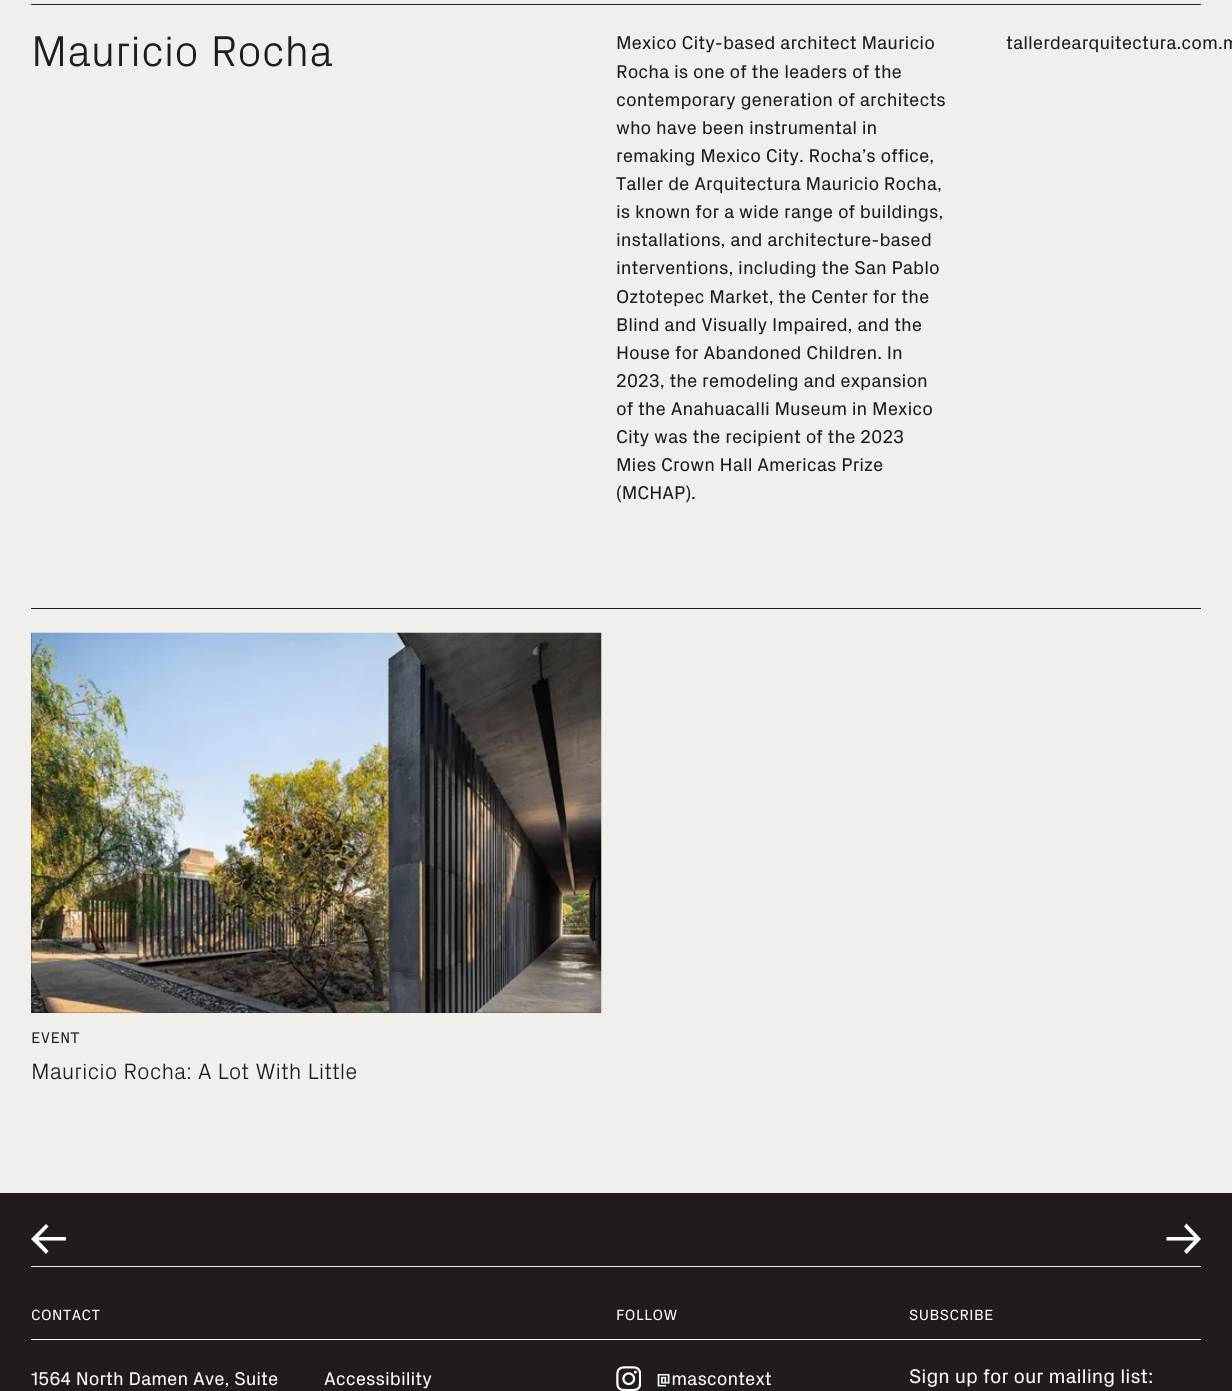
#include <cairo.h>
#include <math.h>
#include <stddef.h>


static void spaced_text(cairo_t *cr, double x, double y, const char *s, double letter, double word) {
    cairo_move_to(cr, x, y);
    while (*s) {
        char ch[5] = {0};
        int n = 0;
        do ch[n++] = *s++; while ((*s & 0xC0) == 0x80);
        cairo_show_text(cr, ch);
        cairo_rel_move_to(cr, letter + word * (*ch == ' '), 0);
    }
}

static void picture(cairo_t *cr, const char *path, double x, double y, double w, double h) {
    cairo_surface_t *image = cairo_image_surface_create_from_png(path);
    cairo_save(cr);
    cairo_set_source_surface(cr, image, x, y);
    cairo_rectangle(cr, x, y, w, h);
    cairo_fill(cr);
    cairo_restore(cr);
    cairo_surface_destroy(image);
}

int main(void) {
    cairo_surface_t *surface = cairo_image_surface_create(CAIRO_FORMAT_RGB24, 1232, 1391);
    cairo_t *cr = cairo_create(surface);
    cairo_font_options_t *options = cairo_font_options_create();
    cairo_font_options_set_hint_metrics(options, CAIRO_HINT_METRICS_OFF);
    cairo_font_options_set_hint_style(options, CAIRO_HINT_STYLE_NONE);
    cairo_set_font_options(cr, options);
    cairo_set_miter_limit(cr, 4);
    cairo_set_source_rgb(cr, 0.941, 0.937, 0.925);
    cairo_paint(cr);
    cairo_set_source_rgb(cr, 0.129, 0.106, 0.106);
    cairo_rectangle(cr, 31, 4, 1170, 1);
    cairo_fill(cr);
    cairo_select_font_face(cr, "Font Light", CAIRO_FONT_SLANT_NORMAL, CAIRO_FONT_WEIGHT_NORMAL);
    cairo_set_font_size(cr, 43.75);
    cairo_move_to(cr, 31, 66);
    cairo_show_text(cr, "Mauricio Rocha");
    cairo_select_font_face(cr, "Font", CAIRO_FONT_SLANT_NORMAL, CAIRO_FONT_WEIGHT_NORMAL);
    cairo_set_font_size(cr, 18.75);
    cairo_move_to(cr, 616, 49);
    cairo_show_text(cr, "Mexico City-based architect Mauricio");
    cairo_move_to(cr, 616, 78);
    cairo_show_text(cr, "Rocha is one of the leaders of the");
    cairo_move_to(cr, 616, 106);
    cairo_show_text(cr, "contemporary generation of architects");
    cairo_move_to(cr, 616, 134);
    cairo_show_text(cr, "who have been instrumental in");
    cairo_move_to(cr, 616, 162);
    cairo_show_text(cr, "remaking Mexico City. Rocha’s office,");
    cairo_move_to(cr, 616, 190);
    cairo_show_text(cr, "Taller de Arquitectura Mauricio Rocha,");
    cairo_move_to(cr, 616, 218);
    cairo_show_text(cr, "is known for a wide range of buildings,");
    cairo_move_to(cr, 616, 246);
    cairo_show_text(cr, "installations, and architecture-based");
    cairo_move_to(cr, 616, 274);
    cairo_show_text(cr, "interventions, including the San Pablo");
    cairo_move_to(cr, 616, 303);
    cairo_show_text(cr, "Oztotepec Market, the Center for the");
    cairo_move_to(cr, 616, 331);
    cairo_show_text(cr, "Blind and Visually Impaired, and the");
    cairo_move_to(cr, 616, 359);
    cairo_show_text(cr, "House for Abandoned Children. In");
    cairo_move_to(cr, 616, 387);
    cairo_show_text(cr, "2023, the remodeling and expansion");
    cairo_move_to(cr, 616, 415);
    cairo_show_text(cr, "of the Anahuacalli Museum in Mexico");
    cairo_move_to(cr, 616, 443);
    cairo_show_text(cr, "City was the recipient of the 2023");
    cairo_move_to(cr, 616, 471);
    cairo_show_text(cr, "Mies Crown Hall Americas Prize");
    cairo_move_to(cr, 616, 499);
    cairo_show_text(cr, "(MCHAP).");
    cairo_move_to(cr, 1006, 49);
    cairo_show_text(cr, "tallerdearquitectura.com.m");
    cairo_rectangle(cr, 31, 608, 1170, 1);
    cairo_fill(cr);
    cairo_rectangle(cr, 31, 633, 570, 380);
    cairo_fill(cr);
    picture(cr, "img1.png", 31, 632, 571, 381);
    cairo_select_font_face(cr, "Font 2", CAIRO_FONT_SLANT_NORMAL, CAIRO_FONT_WEIGHT_NORMAL);
    cairo_set_font_size(cr, 15);
    spaced_text(cr, 31, 1043, "EVENT", 0.5, 0);
    cairo_select_font_face(cr, "Font Light", CAIRO_FONT_SLANT_NORMAL, CAIRO_FONT_WEIGHT_NORMAL);
    cairo_set_font_size(cr, 22.5);
    cairo_move_to(cr, 31, 1079);
    cairo_show_text(cr, "Mauricio Rocha: A Lot With Little");
    cairo_rectangle(cr, 0, 1193, 1232, 198);
    cairo_fill(cr);
    cairo_set_source_rgb(cr, 0.941, 0.937, 0.925);
    cairo_rectangle(cr, 31, 1266, 1170, 1);
    cairo_fill(cr);
    cairo_set_source_rgb(cr, 1, 1, 1);
    cairo_new_path(cr);
    cairo_move_to(cr, 66, 1237);
    cairo_line_to(cr, 38.5, 1237);
    cairo_line_to(cr, 48.5, 1226.5);
    cairo_line_to(cr, 46, 1224);
    cairo_line_to(cr, 31, 1239);
    cairo_line_to(cr, 46, 1254);
    cairo_line_to(cr, 48.5, 1251);
    cairo_line_to(cr, 38.5, 1240.5);
    cairo_line_to(cr, 66, 1240.5);
    cairo_close_path(cr);
    cairo_fill(cr);
    cairo_new_path(cr);
    cairo_move_to(cr, 1166.5, 1240.5);
    cairo_line_to(cr, 1194, 1240.5);
    cairo_line_to(cr, 1184, 1251);
    cairo_line_to(cr, 1186.5, 1254);
    cairo_line_to(cr, 1201, 1239);
    cairo_line_to(cr, 1186.5, 1223.5);
    cairo_line_to(cr, 1184, 1226.5);
    cairo_line_to(cr, 1194, 1237);
    cairo_line_to(cr, 1166.5, 1237);
    cairo_close_path(cr);
    cairo_fill(cr);
    cairo_rectangle(cr, 31, 1339, 1170, 1);
    cairo_fill(cr);
    cairo_select_font_face(cr, "Font", CAIRO_FONT_SLANT_NORMAL, CAIRO_FONT_WEIGHT_NORMAL);
    cairo_set_font_size(cr, 15);
    spaced_text(cr, 31, 1320, "CONTACT", 0.5, 0);
    cairo_set_font_size(cr, 18.75);
    cairo_move_to(cr, 31, 1385);
    cairo_show_text(cr, "1564 North Damen Ave, Suite");
    cairo_move_to(cr, 324, 1385);
    cairo_show_text(cr, "Accessibility");
    cairo_set_font_size(cr, 15);
    spaced_text(cr, 616, 1320, "FOLLOW", 0.5, 0);
    picture(cr, "img2.png", 616, 1366, 25, 25);
    cairo_set_font_size(cr, 18.75);
    cairo_move_to(cr, 656, 1385);
    cairo_show_text(cr, "@mascontext");
    cairo_set_font_size(cr, 15);
    spaced_text(cr, 909, 1320, "SUBSCRIBE", 0.5, 0);
    cairo_set_font_size(cr, 20);
    cairo_move_to(cr, 909, 1383);
    cairo_show_text(cr, "Sign up for our mailing list:");
    cairo_surface_write_to_png(surface, "page.png");
    cairo_font_options_destroy(options);
    cairo_destroy(cr);
    cairo_surface_destroy(surface);
    return 0;
}
